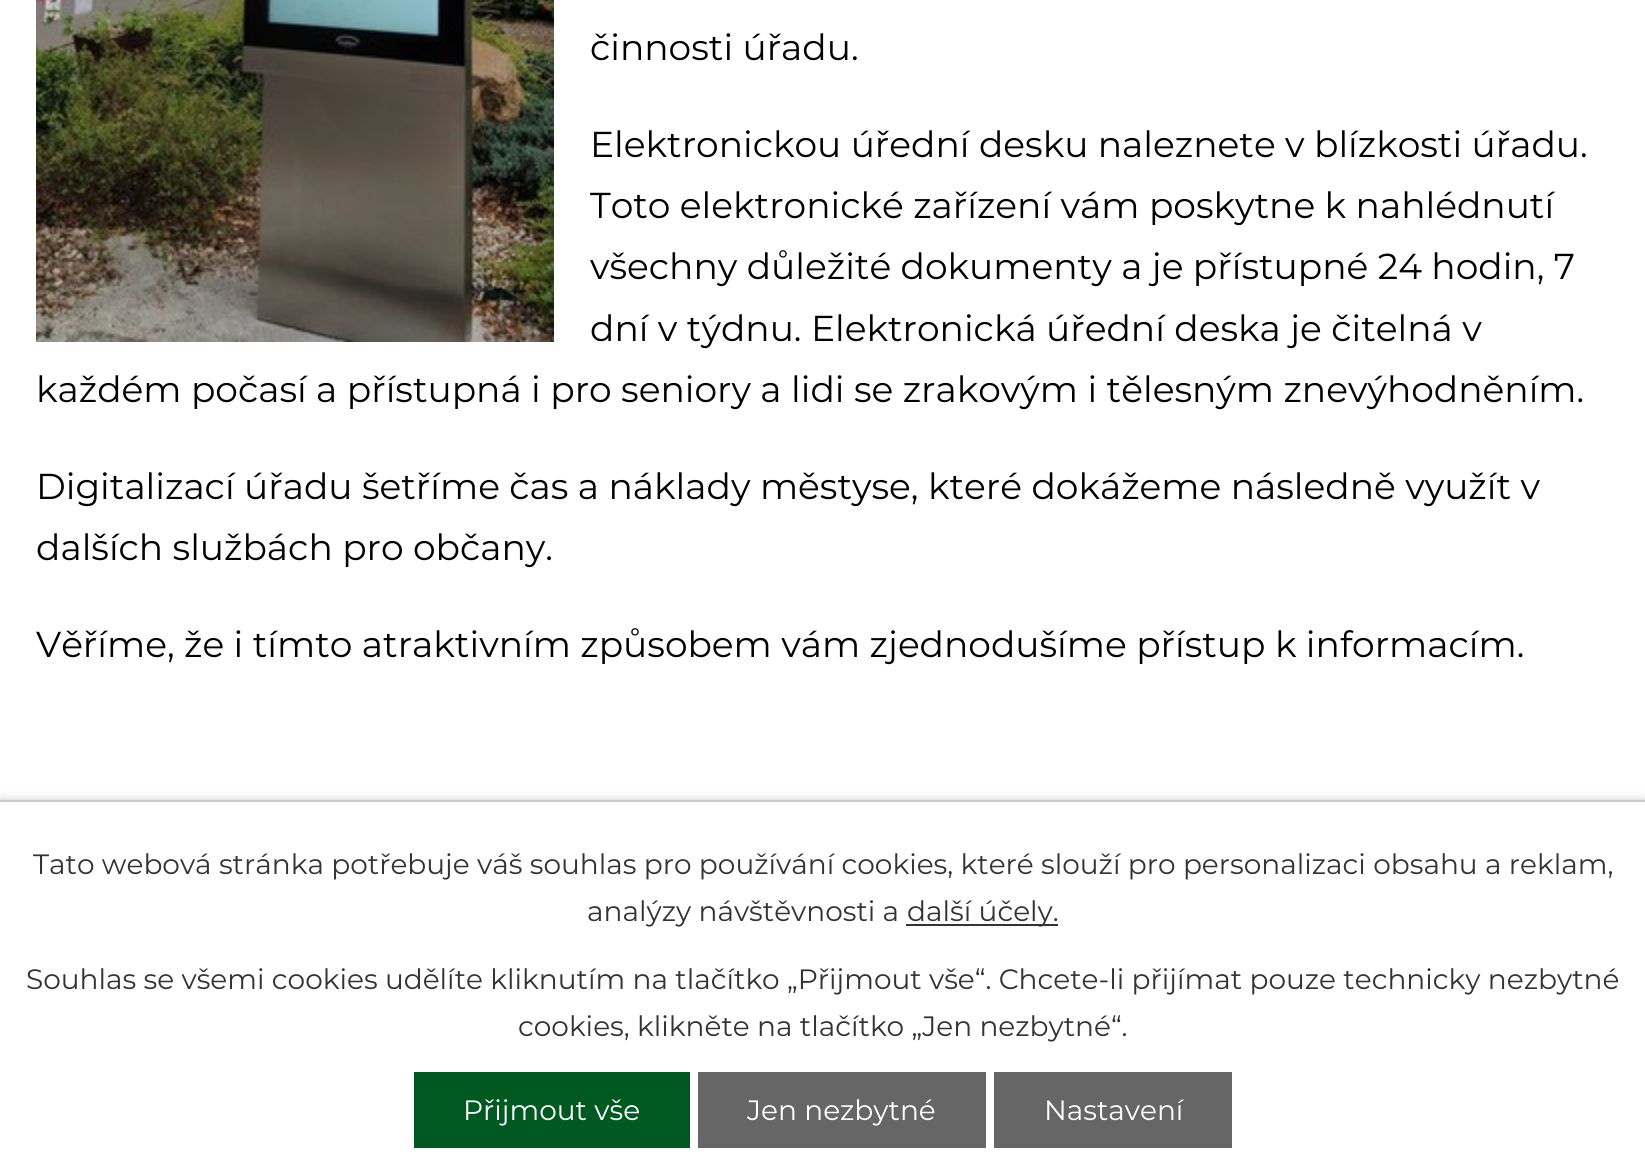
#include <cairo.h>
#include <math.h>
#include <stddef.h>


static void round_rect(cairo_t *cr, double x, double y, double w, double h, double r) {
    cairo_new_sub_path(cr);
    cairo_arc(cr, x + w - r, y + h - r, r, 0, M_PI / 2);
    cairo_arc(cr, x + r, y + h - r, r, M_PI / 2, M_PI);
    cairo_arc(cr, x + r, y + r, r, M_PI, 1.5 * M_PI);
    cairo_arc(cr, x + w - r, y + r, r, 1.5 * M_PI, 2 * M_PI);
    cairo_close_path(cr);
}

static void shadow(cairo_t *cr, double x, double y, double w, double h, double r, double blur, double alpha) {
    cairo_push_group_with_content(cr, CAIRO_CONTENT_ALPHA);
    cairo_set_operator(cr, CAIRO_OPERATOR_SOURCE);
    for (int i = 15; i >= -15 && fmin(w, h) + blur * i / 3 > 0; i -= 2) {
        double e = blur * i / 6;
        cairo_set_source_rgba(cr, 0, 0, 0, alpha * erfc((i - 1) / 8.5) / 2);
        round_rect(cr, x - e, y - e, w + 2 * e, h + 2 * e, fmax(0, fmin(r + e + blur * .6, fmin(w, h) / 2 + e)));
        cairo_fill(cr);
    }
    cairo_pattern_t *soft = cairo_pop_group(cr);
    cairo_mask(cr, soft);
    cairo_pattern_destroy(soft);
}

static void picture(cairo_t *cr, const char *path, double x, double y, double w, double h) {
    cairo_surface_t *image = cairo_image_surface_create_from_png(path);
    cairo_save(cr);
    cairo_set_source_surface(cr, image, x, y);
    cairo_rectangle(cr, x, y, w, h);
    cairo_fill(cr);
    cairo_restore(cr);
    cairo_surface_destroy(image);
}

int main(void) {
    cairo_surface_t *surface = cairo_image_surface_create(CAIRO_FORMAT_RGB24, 1645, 1167);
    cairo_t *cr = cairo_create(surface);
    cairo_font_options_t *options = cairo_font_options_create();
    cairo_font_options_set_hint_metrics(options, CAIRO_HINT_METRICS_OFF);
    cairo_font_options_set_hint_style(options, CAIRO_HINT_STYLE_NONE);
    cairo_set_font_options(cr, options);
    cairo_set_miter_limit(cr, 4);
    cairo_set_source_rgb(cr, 1, 1, 1);
    cairo_paint(cr);
    picture(cr, "img1.png", 36, 0, 518, 342);
    cairo_select_font_face(cr, "Montserrat", CAIRO_FONT_SLANT_NORMAL, CAIRO_FONT_WEIGHT_NORMAL);
    cairo_set_font_size(cr, 36);
    cairo_set_source_rgb(cr, 0, 0, 0);
    cairo_move_to(cr, 590, 60);
    cairo_show_text(cr, "činnosti úřadu.");
    cairo_move_to(cr, 590, 157);
    cairo_show_text(cr, "Elektronickou úřední desku naleznete v blízkosti úřadu.");
    cairo_move_to(cr, 590, 218);
    cairo_show_text(cr, "Toto elektronické zařízení vám poskytne k nahlédnutí");
    cairo_move_to(cr, 590, 279);
    cairo_show_text(cr, "všechny důležité dokumenty a je přístupné 24 hodin, 7");
    cairo_move_to(cr, 590, 341);
    cairo_show_text(cr, "dní v týdnu. Elektronická úřední deska je čitelná v");
    cairo_move_to(cr, 36, 402);
    cairo_show_text(cr, "každém počasí a přístupná i pro seniory a lidi se zrakovým i tělesným znevýhodněním.");
    cairo_move_to(cr, 36, 499);
    cairo_show_text(cr, "Digitalizací úřadu šetříme čas a náklady městyse, které dokážeme následně využít v");
    cairo_move_to(cr, 36, 560);
    cairo_show_text(cr, "dalších službách pro občany.");
    cairo_move_to(cr, 36, 657);
    cairo_show_text(cr, "Věříme, že i tímto atraktivním způsobem vám zjednodušíme přístup k informacím.");
    cairo_set_source_rgb(cr, 0, 0, 0);
    shadow(cr, 0, 800, 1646, 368, 0, 5, 0.2);
    cairo_set_source_rgb(cr, 1, 1, 1);
    cairo_rectangle(cr, 0, 802, 1645, 365);
    cairo_fill(cr);
    cairo_set_source_rgb(cr, 0.8, 0.8, 0.8);
    cairo_rectangle(cr, 0, 800, 1645, 2);
    cairo_fill(cr);
    cairo_set_font_size(cr, 28);
    cairo_set_source_rgb(cr, 0.2, 0.2, 0.2);
    cairo_move_to(cr, 33, 874);
    cairo_show_text(cr, "Tato webová stránka potřebuje váš souhlas pro používání cookies, které slouží pro personalizaci obsahu a reklam,");
    cairo_move_to(cr, 587, 921);
    cairo_show_text(cr, "analýzy návštěvnosti a");
    cairo_rectangle(cr, 906, 924, 152, 2);
    cairo_fill(cr);
    cairo_move_to(cr, 907, 921);
    cairo_show_text(cr, "další účely.");
    cairo_move_to(cr, 26, 989);
    cairo_show_text(cr, "Souhlas se všemi cookies udělíte kliknutím na tlačítko „Přijmout vše“. Chcete-li přijímat pouze technicky nezbytné");
    cairo_move_to(cr, 518, 1036);
    cairo_show_text(cr, "cookies, klikněte na tlačítko „Jen nezbytné“.");
    cairo_set_source_rgb(cr, 0, 0.349, 0.125);
    cairo_rectangle(cr, 414, 1072, 276, 76);
    cairo_fill(cr);
    cairo_set_source_rgb(cr, 1, 1, 1);
    cairo_move_to(cr, 463, 1120);
    cairo_show_text(cr, "Přijmout vše");
    cairo_set_source_rgb(cr, 0.4, 0.4, 0.4);
    cairo_rectangle(cr, 698, 1072, 288, 76);
    cairo_fill(cr);
    cairo_set_source_rgb(cr, 1, 1, 1);
    cairo_move_to(cr, 747, 1120);
    cairo_show_text(cr, "Jen nezbytné");
    cairo_set_source_rgb(cr, 0.4, 0.4, 0.4);
    cairo_rectangle(cr, 994, 1072, 238, 76);
    cairo_fill(cr);
    cairo_set_source_rgb(cr, 1, 1, 1);
    cairo_move_to(cr, 1044, 1120);
    cairo_show_text(cr, "Nastavení");
    cairo_surface_write_to_png(surface, "page.png");
    cairo_font_options_destroy(options);
    cairo_destroy(cr);
    cairo_surface_destroy(surface);
    return 0;
}
